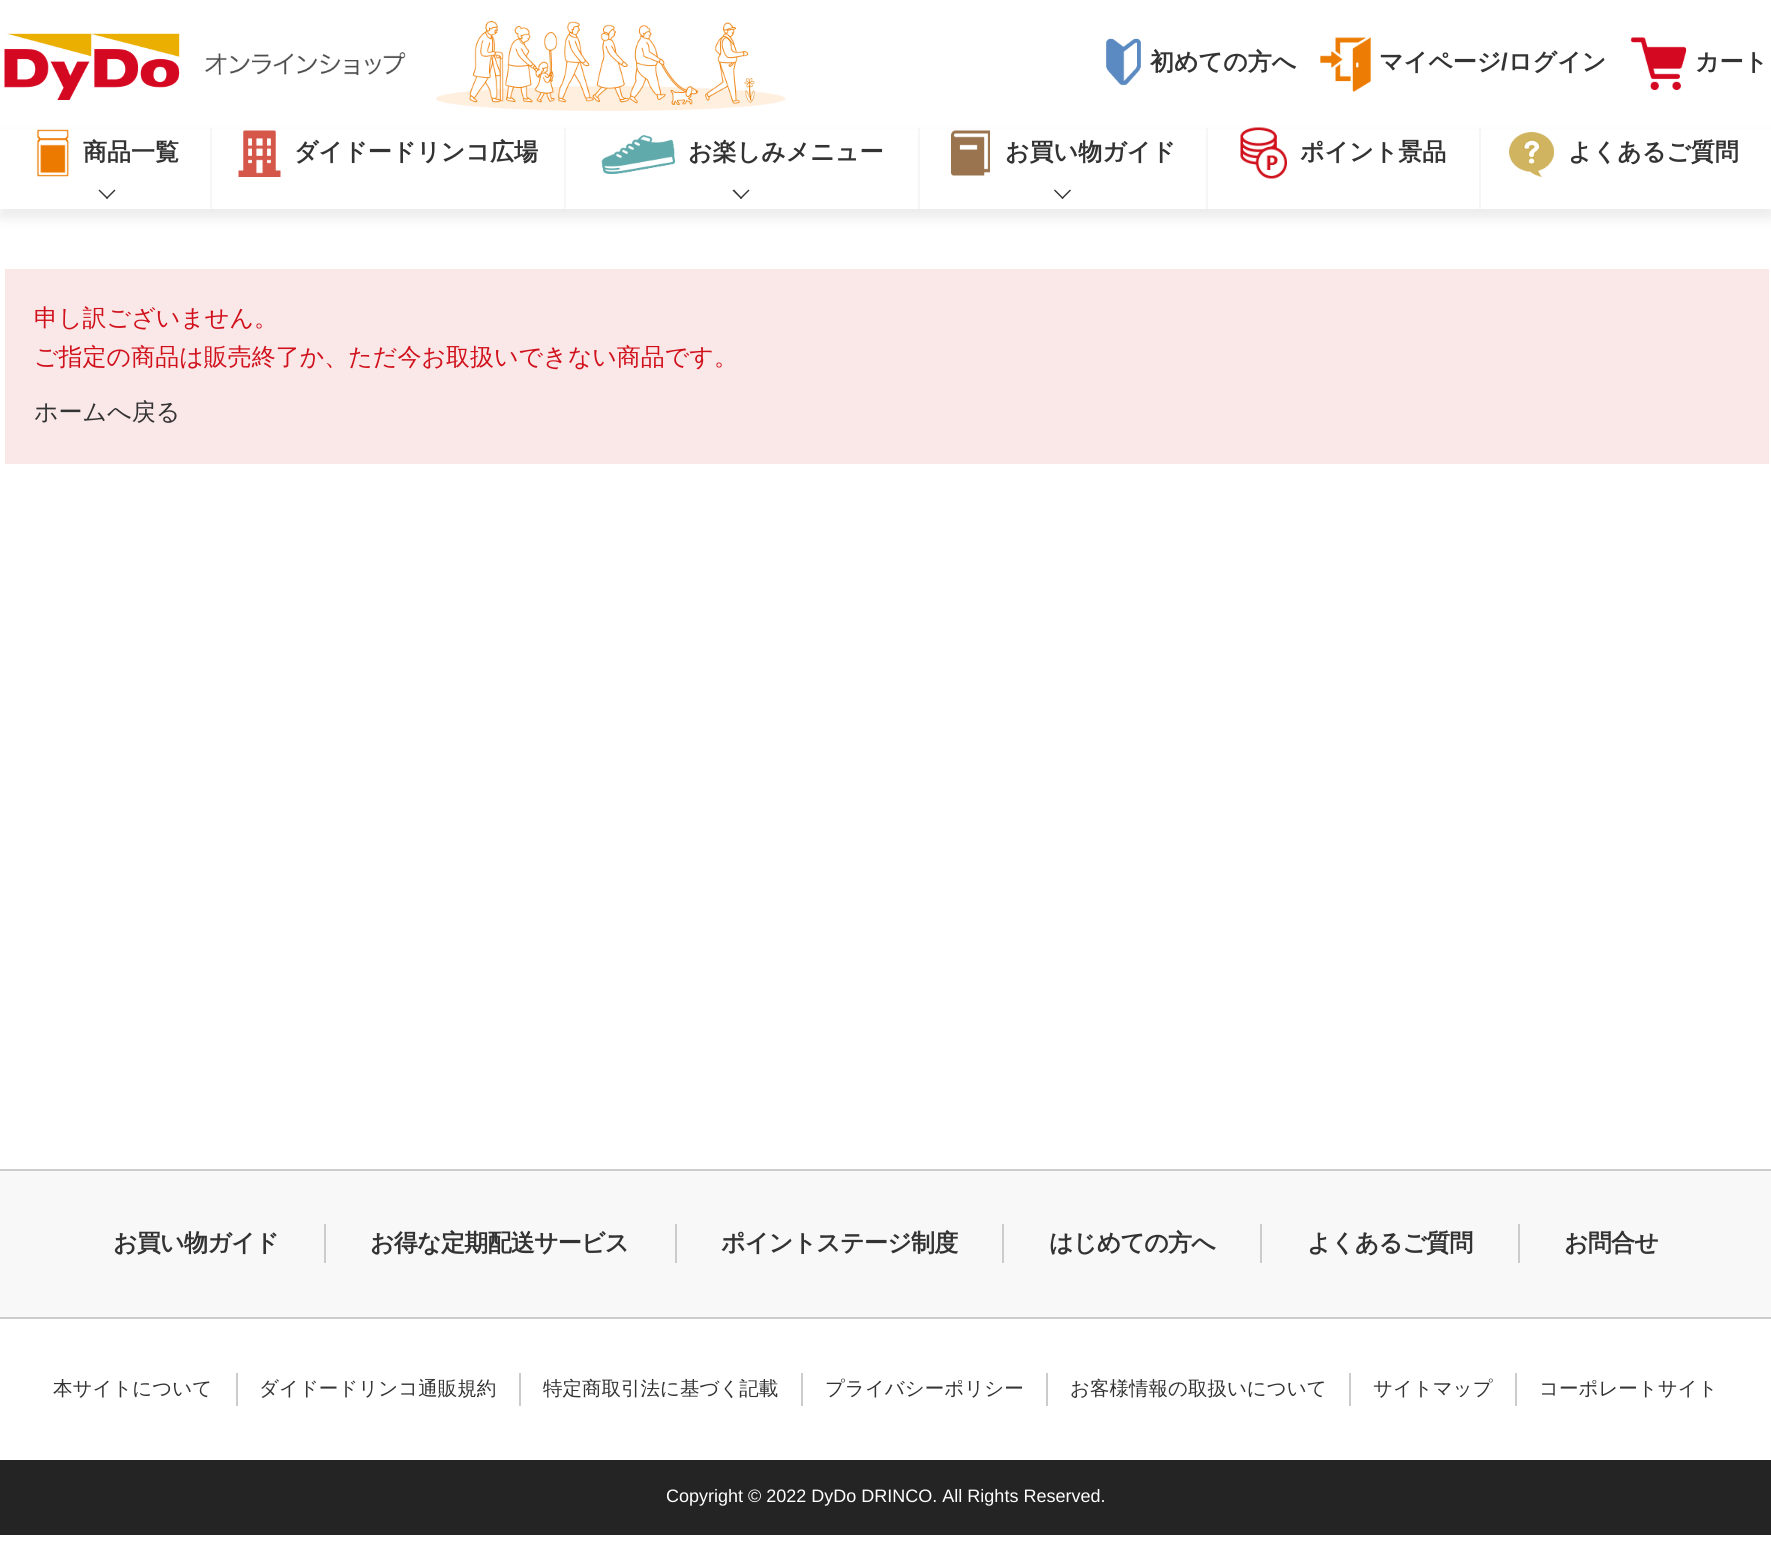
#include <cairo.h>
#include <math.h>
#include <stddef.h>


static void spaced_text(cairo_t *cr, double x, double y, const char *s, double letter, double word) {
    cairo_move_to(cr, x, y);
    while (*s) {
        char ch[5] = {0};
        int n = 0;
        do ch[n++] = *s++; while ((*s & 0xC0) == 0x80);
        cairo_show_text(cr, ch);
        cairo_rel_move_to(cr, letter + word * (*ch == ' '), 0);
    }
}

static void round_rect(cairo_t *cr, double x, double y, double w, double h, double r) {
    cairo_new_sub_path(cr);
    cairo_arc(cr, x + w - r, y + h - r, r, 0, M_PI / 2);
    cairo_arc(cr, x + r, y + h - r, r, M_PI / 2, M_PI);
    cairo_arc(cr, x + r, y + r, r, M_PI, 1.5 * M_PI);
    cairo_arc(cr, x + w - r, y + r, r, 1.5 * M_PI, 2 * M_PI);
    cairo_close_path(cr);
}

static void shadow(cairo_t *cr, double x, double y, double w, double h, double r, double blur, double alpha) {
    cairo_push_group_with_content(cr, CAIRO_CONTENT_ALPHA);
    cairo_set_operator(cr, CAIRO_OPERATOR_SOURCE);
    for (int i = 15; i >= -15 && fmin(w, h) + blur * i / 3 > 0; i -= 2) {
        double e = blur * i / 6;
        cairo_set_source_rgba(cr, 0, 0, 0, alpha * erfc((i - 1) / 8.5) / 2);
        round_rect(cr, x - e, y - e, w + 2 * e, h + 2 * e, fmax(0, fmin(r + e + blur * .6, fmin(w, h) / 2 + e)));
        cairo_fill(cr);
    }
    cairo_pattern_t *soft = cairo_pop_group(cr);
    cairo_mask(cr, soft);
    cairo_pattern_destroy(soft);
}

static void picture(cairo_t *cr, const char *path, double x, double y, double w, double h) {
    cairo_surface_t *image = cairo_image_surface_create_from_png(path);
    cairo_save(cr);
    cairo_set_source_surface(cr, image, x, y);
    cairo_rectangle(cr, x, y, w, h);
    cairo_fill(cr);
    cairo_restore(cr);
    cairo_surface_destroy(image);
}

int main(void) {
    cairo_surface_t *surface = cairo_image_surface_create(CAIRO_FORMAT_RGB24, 1771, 1563);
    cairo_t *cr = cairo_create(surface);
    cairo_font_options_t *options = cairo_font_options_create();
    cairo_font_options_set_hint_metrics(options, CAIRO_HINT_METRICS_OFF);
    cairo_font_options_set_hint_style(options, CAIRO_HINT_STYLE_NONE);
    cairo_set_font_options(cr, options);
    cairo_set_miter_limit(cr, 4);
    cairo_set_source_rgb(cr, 1, 1, 1);
    cairo_paint(cr);
    picture(cr, "img1.png", 436, 21, 350, 90);
    picture(cr, "img2.png", 4, 33, 402, 67);
    picture(cr, "img3.png", 1106, 38, 35, 48);
    cairo_select_font_face(cr, "WenQuanYi Zen Hei", CAIRO_FONT_SLANT_NORMAL, CAIRO_FONT_WEIGHT_BOLD);
    cairo_set_font_size(cr, 24);
    cairo_set_source_rgb(cr, 0.2, 0.2, 0.2);
    cairo_move_to(cr, 1150, 70);
    cairo_show_text(cr, "初めての方へ");
    picture(cr, "img4.png", 1320, 37, 51, 55);
    cairo_move_to(cr, 1379, 70);
    cairo_show_text(cr, "マイページ");
    cairo_select_font_face(cr, "Liberation Sans", CAIRO_FONT_SLANT_NORMAL, CAIRO_FONT_WEIGHT_BOLD);
    cairo_move_to(cr, 1501, 70);
    cairo_show_text(cr, "/");
    cairo_select_font_face(cr, "WenQuanYi Zen Hei", CAIRO_FONT_SLANT_NORMAL, CAIRO_FONT_WEIGHT_BOLD);
    cairo_move_to(cr, 1508, 70);
    cairo_show_text(cr, "ログイン");
    picture(cr, "img5.png", 1630, 37, 57, 53);
    cairo_move_to(cr, 1695, 70);
    cairo_show_text(cr, "カート");
    cairo_set_source_rgb(cr, 0.2, 0.2, 0.2);
    shadow(cr, 0, 137, 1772, 81, 0, 6, 0.1);
    cairo_set_source_rgb(cr, 1, 1, 1);
    cairo_rectangle(cr, 0, 130, 1771, 79);
    cairo_fill(cr);
    picture(cr, "img6.png", 36, 129, 33, 48);
    cairo_set_source_rgb(cr, 0.2, 0.2, 0.2);
    cairo_move_to(cr, 83, 160);
    cairo_show_text(cr, "商品一覧");
    cairo_new_path(cr);
    cairo_move_to(cr, 106, 198);
    cairo_line_to(cr, 114.5, 189.5);
    cairo_line_to(cr, 115.5, 190.5);
    cairo_line_to(cr, 107, 199);
    cairo_close_path(cr);
    cairo_fill(cr);
    cairo_new_path(cr);
    cairo_move_to(cr, 98.5, 190.5);
    cairo_line_to(cr, 99.5, 189.5);
    cairo_line_to(cr, 108, 198);
    cairo_line_to(cr, 107, 199);
    cairo_close_path(cr);
    cairo_fill(cr);
    cairo_set_source_rgb(cr, 0.961, 0.961, 0.961);
    cairo_rectangle(cr, 210, 128, 2, 81);
    cairo_fill(cr);
    picture(cr, "img7.png", 238, 130, 43, 47);
    cairo_set_source_rgb(cr, 0.2, 0.2, 0.2);
    cairo_move_to(cr, 294, 160);
    cairo_show_text(cr, "ダイドードリンコ広場");
    cairo_set_source_rgb(cr, 0.961, 0.961, 0.961);
    cairo_rectangle(cr, 564, 128, 2, 81);
    cairo_fill(cr);
    picture(cr, "img8.png", 601, 135, 75, 39);
    cairo_set_source_rgb(cr, 0.2, 0.2, 0.2);
    cairo_move_to(cr, 688, 160);
    cairo_show_text(cr, "お楽しみメニュー");
    cairo_new_path(cr);
    cairo_move_to(cr, 740, 198);
    cairo_line_to(cr, 748.5, 189.5);
    cairo_line_to(cr, 749.5, 190.5);
    cairo_line_to(cr, 741, 199);
    cairo_close_path(cr);
    cairo_fill(cr);
    cairo_new_path(cr);
    cairo_move_to(cr, 732.5, 190.5);
    cairo_line_to(cr, 734, 189.5);
    cairo_line_to(cr, 742, 198);
    cairo_line_to(cr, 741, 199);
    cairo_close_path(cr);
    cairo_fill(cr);
    cairo_set_source_rgb(cr, 0.961, 0.961, 0.961);
    cairo_rectangle(cr, 918, 128, 2, 81);
    cairo_fill(cr);
    picture(cr, "img9.png", 951, 130, 39, 46);
    cairo_set_source_rgb(cr, 0.2, 0.2, 0.2);
    cairo_move_to(cr, 1005, 160);
    cairo_show_text(cr, "お買い物ガイド");
    cairo_new_path(cr);
    cairo_move_to(cr, 1061.5, 198);
    cairo_line_to(cr, 1070, 189.5);
    cairo_line_to(cr, 1071, 190.5);
    cairo_line_to(cr, 1062.5, 199);
    cairo_close_path(cr);
    cairo_fill(cr);
    cairo_new_path(cr);
    cairo_move_to(cr, 1054, 190.5);
    cairo_line_to(cr, 1055, 189.5);
    cairo_line_to(cr, 1063.5, 198);
    cairo_line_to(cr, 1062.5, 199);
    cairo_close_path(cr);
    cairo_fill(cr);
    cairo_set_source_rgb(cr, 0.961, 0.961, 0.961);
    cairo_rectangle(cr, 1206, 128, 2, 81);
    cairo_fill(cr);
    picture(cr, "img10.png", 1240, 127, 47, 52);
    cairo_set_source_rgb(cr, 0.2, 0.2, 0.2);
    cairo_move_to(cr, 1300, 160);
    cairo_show_text(cr, "ポイント景品");
    cairo_set_source_rgb(cr, 0.961, 0.961, 0.961);
    cairo_rectangle(cr, 1479, 128, 2, 81);
    cairo_fill(cr);
    picture(cr, "img11.png", 1509, 132, 45, 45);
    cairo_set_source_rgb(cr, 0.2, 0.2, 0.2);
    cairo_move_to(cr, 1568, 160);
    cairo_show_text(cr, "よくあるご質問");
    cairo_set_source_rgb(cr, 0.98, 0.906, 0.91);
    cairo_rectangle(cr, 5, 269, 1764, 195);
    cairo_fill(cr);
    cairo_select_font_face(cr, "WenQuanYi Zen Hei Medium", CAIRO_FONT_SLANT_NORMAL, CAIRO_FONT_WEIGHT_NORMAL);
    cairo_set_source_rgb(cr, 0.816, 0.067, 0.106);
    cairo_move_to(cr, 34, 326);
    cairo_show_text(cr, "申し訳ございません。");
    cairo_move_to(cr, 34, 365);
    cairo_show_text(cr, "ご指定の商品は販売終了か、ただ今お取扱いできない商品です。");
    cairo_set_source_rgb(cr, 0.2, 0.2, 0.2);
    cairo_move_to(cr, 34, 420);
    cairo_show_text(cr, "ホームへ戻る");
    cairo_set_source_rgb(cr, 0.969, 0.969, 0.969);
    cairo_rectangle(cr, 0, 1171, 1771, 146);
    cairo_fill(cr);
    cairo_set_source_rgb(cr, 0.8, 0.8, 0.8);
    cairo_rectangle(cr, 0, 1169, 1771, 2);
    cairo_fill(cr);
    cairo_rectangle(cr, 324, 1224, 2, 39);
    cairo_fill(cr);
    cairo_select_font_face(cr, "WenQuanYi Zen Hei", CAIRO_FONT_SLANT_NORMAL, CAIRO_FONT_WEIGHT_BOLD);
    cairo_set_source_rgb(cr, 0.2, 0.2, 0.2);
    spaced_text(cr, 113, 1251, "お買い物ガイド", -0.75, 0);
    cairo_set_source_rgb(cr, 0.8, 0.8, 0.8);
    cairo_rectangle(cr, 675, 1224, 2, 39);
    cairo_fill(cr);
    cairo_set_source_rgb(cr, 0.2, 0.2, 0.2);
    spaced_text(cr, 370, 1251, "お得な定期配送サービス", -0.75, 0);
    cairo_set_source_rgb(cr, 0.8, 0.8, 0.8);
    cairo_rectangle(cr, 1002, 1224, 2, 39);
    cairo_fill(cr);
    cairo_set_source_rgb(cr, 0.2, 0.2, 0.2);
    spaced_text(cr, 721, 1251, "ポイントステージ制度", -0.75, 0);
    cairo_set_source_rgb(cr, 0.8, 0.8, 0.8);
    cairo_rectangle(cr, 1260, 1224, 2, 39);
    cairo_fill(cr);
    cairo_set_source_rgb(cr, 0.2, 0.2, 0.2);
    spaced_text(cr, 1049, 1251, "はじめての方へ", -0.75, 0);
    cairo_set_source_rgb(cr, 0.8, 0.8, 0.8);
    cairo_rectangle(cr, 1518, 1224, 2, 39);
    cairo_fill(cr);
    cairo_set_source_rgb(cr, 0.2, 0.2, 0.2);
    spaced_text(cr, 1307, 1251, "よくあるご質問", -0.75, 0);
    spaced_text(cr, 1564, 1251, "お問合せ", -0.75, 0);
    cairo_set_source_rgb(cr, 0.8, 0.8, 0.8);
    cairo_rectangle(cr, 0, 1317, 1771, 2);
    cairo_fill(cr);
    cairo_rectangle(cr, 236, 1373, 2, 33);
    cairo_fill(cr);
    cairo_select_font_face(cr, "WenQuanYi Zen Hei Medium", CAIRO_FONT_SLANT_NORMAL, CAIRO_FONT_WEIGHT_NORMAL);
    cairo_set_font_size(cr, 19.5);
    cairo_set_source_rgb(cr, 0.2, 0.2, 0.2);
    cairo_move_to(cr, 53, 1395);
    cairo_show_text(cr, "本サイトについて");
    cairo_set_source_rgb(cr, 0.8, 0.8, 0.8);
    cairo_rectangle(cr, 519, 1373, 2, 33);
    cairo_fill(cr);
    cairo_set_source_rgb(cr, 0.2, 0.2, 0.2);
    cairo_move_to(cr, 259, 1395);
    cairo_show_text(cr, "ダイドードリンコ通販規約");
    cairo_set_source_rgb(cr, 0.8, 0.8, 0.8);
    cairo_rectangle(cr, 801, 1373, 2, 33);
    cairo_fill(cr);
    cairo_set_source_rgb(cr, 0.2, 0.2, 0.2);
    cairo_move_to(cr, 543, 1395);
    cairo_show_text(cr, "特定商取引法に基づく記載");
    cairo_set_source_rgb(cr, 0.8, 0.8, 0.8);
    cairo_rectangle(cr, 1046, 1373, 2, 33);
    cairo_fill(cr);
    cairo_set_source_rgb(cr, 0.2, 0.2, 0.2);
    cairo_move_to(cr, 825, 1395);
    cairo_show_text(cr, "プライバシーポリシー");
    cairo_set_source_rgb(cr, 0.8, 0.8, 0.8);
    cairo_rectangle(cr, 1349, 1373, 2, 33);
    cairo_fill(cr);
    cairo_set_source_rgb(cr, 0.2, 0.2, 0.2);
    cairo_move_to(cr, 1070, 1395);
    cairo_show_text(cr, "お客様情報の取扱いについて");
    cairo_set_source_rgb(cr, 0.8, 0.8, 0.8);
    cairo_rectangle(cr, 1515, 1373, 2, 33);
    cairo_fill(cr);
    cairo_set_source_rgb(cr, 0.2, 0.2, 0.2);
    cairo_move_to(cr, 1373, 1395);
    cairo_show_text(cr, "サイトマップ");
    cairo_move_to(cr, 1539, 1395);
    cairo_show_text(cr, "コーポレートサイト");
    cairo_set_source_rgb(cr, 0.141, 0.141, 0.141);
    cairo_rectangle(cr, 0, 1460, 1771, 75);
    cairo_fill(cr);
    cairo_select_font_face(cr, "Liberation Sans", CAIRO_FONT_SLANT_NORMAL, CAIRO_FONT_WEIGHT_NORMAL);
    cairo_set_font_size(cr, 18);
    cairo_set_source_rgb(cr, 1, 1, 1);
    cairo_move_to(cr, 666, 1502);
    cairo_show_text(cr, "Copyright © 2022 DyDo DRINCO. All Rights Reserved.");
    cairo_surface_write_to_png(surface, "page.png");
    cairo_font_options_destroy(options);
    cairo_destroy(cr);
    cairo_surface_destroy(surface);
    return 0;
}
